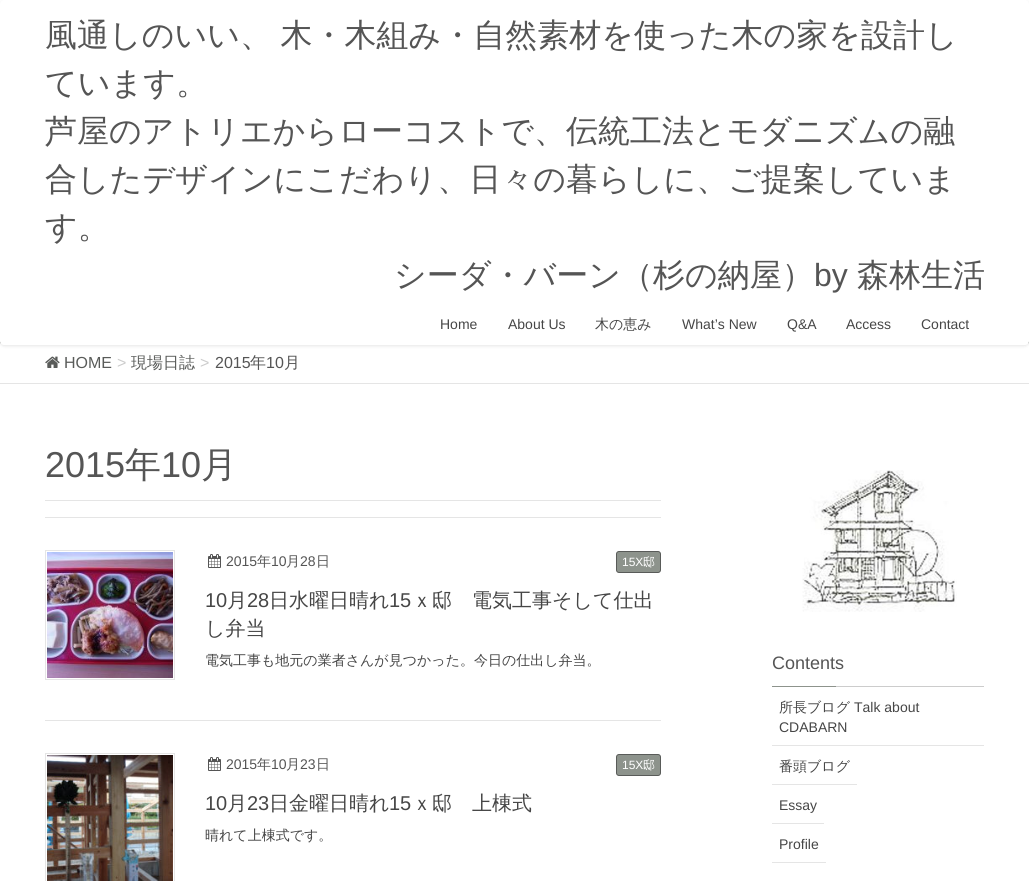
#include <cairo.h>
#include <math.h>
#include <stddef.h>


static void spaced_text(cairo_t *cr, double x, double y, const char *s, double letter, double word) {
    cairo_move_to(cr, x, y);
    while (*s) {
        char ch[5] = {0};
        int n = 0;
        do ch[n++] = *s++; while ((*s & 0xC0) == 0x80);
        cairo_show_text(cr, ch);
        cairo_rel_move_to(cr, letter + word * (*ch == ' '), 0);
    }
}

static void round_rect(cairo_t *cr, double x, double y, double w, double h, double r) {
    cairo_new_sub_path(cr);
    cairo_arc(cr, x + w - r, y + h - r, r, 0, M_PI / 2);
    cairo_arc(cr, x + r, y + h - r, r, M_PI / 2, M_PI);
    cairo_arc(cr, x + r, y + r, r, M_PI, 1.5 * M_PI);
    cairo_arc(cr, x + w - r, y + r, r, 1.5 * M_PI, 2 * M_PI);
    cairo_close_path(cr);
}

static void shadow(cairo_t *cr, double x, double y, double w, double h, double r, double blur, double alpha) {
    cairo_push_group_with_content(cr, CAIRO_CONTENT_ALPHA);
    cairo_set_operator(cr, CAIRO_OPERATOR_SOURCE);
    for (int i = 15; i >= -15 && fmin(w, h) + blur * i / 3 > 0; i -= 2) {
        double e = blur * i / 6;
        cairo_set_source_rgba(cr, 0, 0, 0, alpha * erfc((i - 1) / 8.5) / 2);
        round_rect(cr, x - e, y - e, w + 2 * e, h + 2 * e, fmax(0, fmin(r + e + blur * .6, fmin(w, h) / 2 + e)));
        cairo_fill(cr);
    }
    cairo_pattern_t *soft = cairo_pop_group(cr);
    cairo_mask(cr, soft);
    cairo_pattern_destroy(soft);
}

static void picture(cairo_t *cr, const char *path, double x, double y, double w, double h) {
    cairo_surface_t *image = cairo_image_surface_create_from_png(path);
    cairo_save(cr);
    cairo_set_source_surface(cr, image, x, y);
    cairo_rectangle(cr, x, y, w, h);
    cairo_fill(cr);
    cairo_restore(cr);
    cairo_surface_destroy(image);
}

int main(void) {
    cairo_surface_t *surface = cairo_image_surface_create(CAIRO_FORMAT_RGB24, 1029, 881);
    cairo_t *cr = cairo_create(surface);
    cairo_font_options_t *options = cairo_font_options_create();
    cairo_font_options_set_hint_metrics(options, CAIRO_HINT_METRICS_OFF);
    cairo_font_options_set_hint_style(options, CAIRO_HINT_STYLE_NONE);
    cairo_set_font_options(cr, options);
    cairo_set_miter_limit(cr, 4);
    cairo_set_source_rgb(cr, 1, 1, 1);
    cairo_paint(cr);
    cairo_set_source_rgb(cr, 0.553, 0.576, 0.549);
    cairo_rectangle(cr, 0, 341, 1029, 2);
    cairo_fill(cr);
    cairo_set_source_rgb(cr, 0.933, 0.933, 0.933);
    cairo_rectangle(cr, 0, 343, 1029, 1);
    cairo_fill(cr);
    cairo_set_source_rgb(cr, 0, 0, 0);
    shadow(cr, 0, 1, 1029, 345, 4, 1.5, 0.1);
    cairo_set_source_rgb(cr, 1, 1, 1);
    round_rect(cr, 0, 0, 1029, 345, 4);
    cairo_fill(cr);
    cairo_select_font_face(cr, "WenQuanYi Zen Hei Medium", CAIRO_FONT_SLANT_NORMAL, CAIRO_FONT_WEIGHT_NORMAL);
    cairo_set_font_size(cr, 32);
    cairo_set_source_rgb(cr, 0.333, 0.333, 0.333);
    spaced_text(cr, 45, 46, "風通しのいい、 木・木組み・自然素材を使った木の家を設計し", 0, -1);
    cairo_move_to(cr, 45, 94);
    cairo_show_text(cr, "ています。");
    cairo_move_to(cr, 45, 142);
    cairo_show_text(cr, "芦屋のアトリエからローコストで、伝統工法とモダニズムの融");
    cairo_move_to(cr, 45, 190);
    cairo_show_text(cr, "合したデザインにこだわり、日々の暮らしに、ご提案していま");
    cairo_move_to(cr, 45, 238);
    cairo_show_text(cr, "す。");
    cairo_move_to(cr, 394, 286);
    cairo_show_text(cr, "シーダ・バーン（杉の納屋）");
    cairo_select_font_face(cr, "Liberation Sans", CAIRO_FONT_SLANT_NORMAL, CAIRO_FONT_WEIGHT_NORMAL);
    cairo_move_to(cr, 814, 286);
    cairo_show_text(cr, "by");
    cairo_select_font_face(cr, "WenQuanYi Zen Hei Medium", CAIRO_FONT_SLANT_NORMAL, CAIRO_FONT_WEIGHT_NORMAL);
    cairo_move_to(cr, 857, 286);
    cairo_show_text(cr, "森林生活");
    cairo_select_font_face(cr, "Liberation Sans", CAIRO_FONT_SLANT_NORMAL, CAIRO_FONT_WEIGHT_NORMAL);
    cairo_set_font_size(cr, 14);
    cairo_set_source_rgb(cr, 0.275, 0.275, 0.275);
    cairo_move_to(cr, 440, 329);
    cairo_show_text(cr, "Home");
    cairo_move_to(cr, 508, 329);
    cairo_show_text(cr, "About Us");
    cairo_select_font_face(cr, "WenQuanYi Zen Hei Medium", CAIRO_FONT_SLANT_NORMAL, CAIRO_FONT_WEIGHT_NORMAL);
    cairo_move_to(cr, 595, 329);
    cairo_show_text(cr, "木の恵み");
    cairo_select_font_face(cr, "Liberation Sans", CAIRO_FONT_SLANT_NORMAL, CAIRO_FONT_WEIGHT_NORMAL);
    cairo_move_to(cr, 682, 329);
    cairo_show_text(cr, "What’s New");
    cairo_move_to(cr, 787, 329);
    cairo_show_text(cr, "Q&A");
    cairo_move_to(cr, 846, 329);
    cairo_show_text(cr, "Access");
    cairo_move_to(cr, 921, 329);
    cairo_show_text(cr, "Contact");
    cairo_set_source_rgb(cr, 0.898, 0.898, 0.898);
    cairo_rectangle(cr, 0, 383, 1029, 1);
    cairo_fill(cr);
    picture(cr, "img1.png", 45, 356, 15, 12);
    cairo_set_font_size(cr, 16);
    cairo_set_source_rgb(cr, 0.349, 0.357, 0.349);
    cairo_move_to(cr, 64, 368);
    cairo_show_text(cr, "HOME");
    cairo_set_source_rgb(cr, 0.8, 0.8, 0.8);
    cairo_move_to(cr, 117, 368);
    cairo_show_text(cr, ">");
    cairo_select_font_face(cr, "WenQuanYi Zen Hei Medium", CAIRO_FONT_SLANT_NORMAL, CAIRO_FONT_WEIGHT_NORMAL);
    cairo_set_source_rgb(cr, 0.349, 0.357, 0.349);
    cairo_move_to(cr, 131, 368);
    cairo_show_text(cr, "現場日誌");
    cairo_select_font_face(cr, "Liberation Sans", CAIRO_FONT_SLANT_NORMAL, CAIRO_FONT_WEIGHT_NORMAL);
    cairo_set_source_rgb(cr, 0.8, 0.8, 0.8);
    cairo_move_to(cr, 200, 368);
    cairo_show_text(cr, ">");
    cairo_set_source_rgb(cr, 0.333, 0.333, 0.333);
    cairo_move_to(cr, 215, 368);
    cairo_show_text(cr, "2015");
    cairo_select_font_face(cr, "WenQuanYi Zen Hei Medium", CAIRO_FONT_SLANT_NORMAL, CAIRO_FONT_WEIGHT_NORMAL);
    cairo_move_to(cr, 250, 368);
    cairo_show_text(cr, "年");
    cairo_select_font_face(cr, "Liberation Sans", CAIRO_FONT_SLANT_NORMAL, CAIRO_FONT_WEIGHT_NORMAL);
    cairo_move_to(cr, 266, 368);
    cairo_show_text(cr, "10");
    cairo_select_font_face(cr, "WenQuanYi Zen Hei Medium", CAIRO_FONT_SLANT_NORMAL, CAIRO_FONT_WEIGHT_NORMAL);
    cairo_move_to(cr, 284, 368);
    cairo_show_text(cr, "月");
    cairo_set_source_rgb(cr, 0.898, 0.898, 0.898);
    cairo_rectangle(cr, 45, 500, 616, 1);
    cairo_fill(cr);
    cairo_select_font_face(cr, "Liberation Sans", CAIRO_FONT_SLANT_NORMAL, CAIRO_FONT_WEIGHT_NORMAL);
    cairo_set_font_size(cr, 36);
    cairo_set_source_rgb(cr, 0.333, 0.333, 0.333);
    cairo_move_to(cr, 45, 477);
    cairo_show_text(cr, "2015");
    cairo_select_font_face(cr, "WenQuanYi Zen Hei Medium", CAIRO_FONT_SLANT_NORMAL, CAIRO_FONT_WEIGHT_NORMAL);
    cairo_move_to(cr, 125, 477);
    cairo_show_text(cr, "年");
    cairo_select_font_face(cr, "Liberation Sans", CAIRO_FONT_SLANT_NORMAL, CAIRO_FONT_WEIGHT_NORMAL);
    cairo_move_to(cr, 161, 477);
    cairo_show_text(cr, "10");
    cairo_select_font_face(cr, "WenQuanYi Zen Hei Medium", CAIRO_FONT_SLANT_NORMAL, CAIRO_FONT_WEIGHT_NORMAL);
    cairo_move_to(cr, 201, 477);
    cairo_show_text(cr, "月");
    cairo_set_source_rgb(cr, 0.898, 0.898, 0.898);
    cairo_rectangle(cr, 45, 517, 616, 1);
    cairo_fill(cr);
    cairo_rectangle(cr, 45, 720, 616, 1);
    cairo_fill(cr);
    cairo_rectangle(cr, 45.5, 550.5, 129, 129);
    cairo_set_line_width(cr, 1);
    cairo_stroke(cr);
    picture(cr, "img2.png", 47, 552, 126, 126);
    picture(cr, "img3.png", 208, 554, 13, 14);
    cairo_select_font_face(cr, "Liberation Sans", CAIRO_FONT_SLANT_NORMAL, CAIRO_FONT_WEIGHT_NORMAL);
    cairo_set_font_size(cr, 14);
    cairo_set_source_rgb(cr, 0.333, 0.333, 0.333);
    cairo_move_to(cr, 226, 566);
    cairo_show_text(cr, "2015");
    cairo_select_font_face(cr, "WenQuanYi Zen Hei Medium", CAIRO_FONT_SLANT_NORMAL, CAIRO_FONT_WEIGHT_NORMAL);
    cairo_move_to(cr, 257, 566);
    cairo_show_text(cr, "年");
    cairo_select_font_face(cr, "Liberation Sans", CAIRO_FONT_SLANT_NORMAL, CAIRO_FONT_WEIGHT_NORMAL);
    cairo_move_to(cr, 271, 566);
    cairo_show_text(cr, "10");
    cairo_select_font_face(cr, "WenQuanYi Zen Hei Medium", CAIRO_FONT_SLANT_NORMAL, CAIRO_FONT_WEIGHT_NORMAL);
    cairo_move_to(cr, 286, 566);
    cairo_show_text(cr, "月");
    cairo_select_font_face(cr, "Liberation Sans", CAIRO_FONT_SLANT_NORMAL, CAIRO_FONT_WEIGHT_NORMAL);
    cairo_move_to(cr, 300, 566);
    cairo_show_text(cr, "28");
    cairo_select_font_face(cr, "WenQuanYi Zen Hei Medium", CAIRO_FONT_SLANT_NORMAL, CAIRO_FONT_WEIGHT_NORMAL);
    cairo_move_to(cr, 316, 566);
    cairo_show_text(cr, "日");
    cairo_set_source_rgb(cr, 0.553, 0.576, 0.549);
    round_rect(cr, 616.5, 551.5, 44, 21, 2.5);
    cairo_fill_preserve(cr);
    cairo_set_source_rgb(cr, 0.349, 0.357, 0.349);
    cairo_stroke(cr);
    cairo_select_font_face(cr, "Liberation Sans", CAIRO_FONT_SLANT_NORMAL, CAIRO_FONT_WEIGHT_NORMAL);
    cairo_set_font_size(cr, 12);
    cairo_set_source_rgb(cr, 1, 1, 1);
    cairo_move_to(cr, 622, 566);
    cairo_show_text(cr, "15X");
    cairo_select_font_face(cr, "WenQuanYi Zen Hei Medium", CAIRO_FONT_SLANT_NORMAL, CAIRO_FONT_WEIGHT_NORMAL);
    cairo_move_to(cr, 643, 566);
    cairo_show_text(cr, "邸");
    cairo_select_font_face(cr, "Liberation Sans", CAIRO_FONT_SLANT_NORMAL, CAIRO_FONT_WEIGHT_NORMAL);
    cairo_set_font_size(cr, 20);
    cairo_set_source_rgb(cr, 0.275, 0.275, 0.275);
    cairo_move_to(cr, 205, 607);
    cairo_show_text(cr, "10");
    cairo_select_font_face(cr, "WenQuanYi Zen Hei Medium", CAIRO_FONT_SLANT_NORMAL, CAIRO_FONT_WEIGHT_NORMAL);
    cairo_move_to(cr, 227, 607);
    cairo_show_text(cr, "月");
    cairo_select_font_face(cr, "Liberation Sans", CAIRO_FONT_SLANT_NORMAL, CAIRO_FONT_WEIGHT_NORMAL);
    cairo_move_to(cr, 247, 607);
    cairo_show_text(cr, "28");
    cairo_select_font_face(cr, "WenQuanYi Zen Hei Medium", CAIRO_FONT_SLANT_NORMAL, CAIRO_FONT_WEIGHT_NORMAL);
    cairo_move_to(cr, 269, 607);
    cairo_show_text(cr, "日水曜日晴れ");
    cairo_select_font_face(cr, "Liberation Sans", CAIRO_FONT_SLANT_NORMAL, CAIRO_FONT_WEIGHT_NORMAL);
    cairo_move_to(cr, 389, 607);
    cairo_show_text(cr, "15");
    cairo_select_font_face(cr, "WenQuanYi Zen Hei Medium", CAIRO_FONT_SLANT_NORMAL, CAIRO_FONT_WEIGHT_NORMAL);
    cairo_move_to(cr, 412, 607);
    cairo_show_text(cr, "ｘ邸　電気工事そして仕出");
    cairo_move_to(cr, 205, 635);
    cairo_show_text(cr, "し弁当");
    cairo_set_font_size(cr, 14);
    cairo_move_to(cr, 205, 665);
    cairo_show_text(cr, "電気工事も地元の業者さんが見つかった。今日の仕出し弁当。");
    cairo_rectangle(cr, 45.5, 753.5, 129, 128);
    cairo_set_source_rgb(cr, 0.898, 0.898, 0.898);
    cairo_stroke(cr);
    picture(cr, "img4.png", 47, 755, 126, 126);
    picture(cr, "img3.png", 208, 757, 13, 14);
    cairo_select_font_face(cr, "Liberation Sans", CAIRO_FONT_SLANT_NORMAL, CAIRO_FONT_WEIGHT_NORMAL);
    cairo_set_source_rgb(cr, 0.333, 0.333, 0.333);
    cairo_move_to(cr, 226, 769);
    cairo_show_text(cr, "2015");
    cairo_select_font_face(cr, "WenQuanYi Zen Hei Medium", CAIRO_FONT_SLANT_NORMAL, CAIRO_FONT_WEIGHT_NORMAL);
    cairo_move_to(cr, 257, 769);
    cairo_show_text(cr, "年");
    cairo_select_font_face(cr, "Liberation Sans", CAIRO_FONT_SLANT_NORMAL, CAIRO_FONT_WEIGHT_NORMAL);
    cairo_move_to(cr, 271, 769);
    cairo_show_text(cr, "10");
    cairo_select_font_face(cr, "WenQuanYi Zen Hei Medium", CAIRO_FONT_SLANT_NORMAL, CAIRO_FONT_WEIGHT_NORMAL);
    cairo_move_to(cr, 286, 769);
    cairo_show_text(cr, "月");
    cairo_select_font_face(cr, "Liberation Sans", CAIRO_FONT_SLANT_NORMAL, CAIRO_FONT_WEIGHT_NORMAL);
    cairo_move_to(cr, 300, 769);
    cairo_show_text(cr, "23");
    cairo_select_font_face(cr, "WenQuanYi Zen Hei Medium", CAIRO_FONT_SLANT_NORMAL, CAIRO_FONT_WEIGHT_NORMAL);
    cairo_move_to(cr, 316, 769);
    cairo_show_text(cr, "日");
    cairo_set_source_rgb(cr, 0.553, 0.576, 0.549);
    round_rect(cr, 616.5, 754.5, 44, 21, 2.5);
    cairo_fill_preserve(cr);
    cairo_set_source_rgb(cr, 0.349, 0.357, 0.349);
    cairo_stroke(cr);
    cairo_select_font_face(cr, "Liberation Sans", CAIRO_FONT_SLANT_NORMAL, CAIRO_FONT_WEIGHT_NORMAL);
    cairo_set_font_size(cr, 12);
    cairo_set_source_rgb(cr, 1, 1, 1);
    cairo_move_to(cr, 622, 769);
    cairo_show_text(cr, "15X");
    cairo_select_font_face(cr, "WenQuanYi Zen Hei Medium", CAIRO_FONT_SLANT_NORMAL, CAIRO_FONT_WEIGHT_NORMAL);
    cairo_move_to(cr, 643, 769);
    cairo_show_text(cr, "邸");
    cairo_select_font_face(cr, "Liberation Sans", CAIRO_FONT_SLANT_NORMAL, CAIRO_FONT_WEIGHT_NORMAL);
    cairo_set_font_size(cr, 20);
    cairo_set_source_rgb(cr, 0.275, 0.275, 0.275);
    cairo_move_to(cr, 205, 810);
    cairo_show_text(cr, "10");
    cairo_select_font_face(cr, "WenQuanYi Zen Hei Medium", CAIRO_FONT_SLANT_NORMAL, CAIRO_FONT_WEIGHT_NORMAL);
    cairo_move_to(cr, 227, 810);
    cairo_show_text(cr, "月");
    cairo_select_font_face(cr, "Liberation Sans", CAIRO_FONT_SLANT_NORMAL, CAIRO_FONT_WEIGHT_NORMAL);
    cairo_move_to(cr, 247, 810);
    cairo_show_text(cr, "23");
    cairo_select_font_face(cr, "WenQuanYi Zen Hei Medium", CAIRO_FONT_SLANT_NORMAL, CAIRO_FONT_WEIGHT_NORMAL);
    cairo_move_to(cr, 269, 810);
    cairo_show_text(cr, "日金曜日晴れ");
    cairo_select_font_face(cr, "Liberation Sans", CAIRO_FONT_SLANT_NORMAL, CAIRO_FONT_WEIGHT_NORMAL);
    cairo_move_to(cr, 389, 810);
    cairo_show_text(cr, "15");
    cairo_select_font_face(cr, "WenQuanYi Zen Hei Medium", CAIRO_FONT_SLANT_NORMAL, CAIRO_FONT_WEIGHT_NORMAL);
    cairo_move_to(cr, 412, 810);
    cairo_show_text(cr, "ｘ邸　上棟式");
    cairo_set_font_size(cr, 14);
    cairo_move_to(cr, 205, 840);
    cairo_show_text(cr, "晴れて上棟式です。");
    picture(cr, "img5.png", 802, 470, 155, 142);
    cairo_set_source_rgb(cr, 0.8, 0.8, 0.8);
    cairo_rectangle(cr, 836, 686, 148, 1);
    cairo_fill(cr);
    cairo_select_font_face(cr, "Liberation Sans", CAIRO_FONT_SLANT_NORMAL, CAIRO_FONT_WEIGHT_NORMAL);
    cairo_set_font_size(cr, 18);
    cairo_set_source_rgb(cr, 0.333, 0.333, 0.333);
    cairo_move_to(cr, 772, 669);
    cairo_show_text(cr, "Contents");
    cairo_set_source_rgb(cr, 0.553, 0.576, 0.549);
    cairo_rectangle(cr, 772, 686, 64, 1);
    cairo_fill(cr);
    cairo_set_source_rgb(cr, 0.898, 0.898, 0.898);
    cairo_rectangle(cr, 772, 745, 212, 1);
    cairo_fill(cr);
    cairo_select_font_face(cr, "WenQuanYi Zen Hei Medium", CAIRO_FONT_SLANT_NORMAL, CAIRO_FONT_WEIGHT_NORMAL);
    cairo_set_font_size(cr, 14);
    cairo_set_source_rgb(cr, 0.275, 0.275, 0.275);
    cairo_move_to(cr, 779, 712);
    cairo_show_text(cr, "所長ブログ");
    cairo_select_font_face(cr, "Liberation Sans", CAIRO_FONT_SLANT_NORMAL, CAIRO_FONT_WEIGHT_NORMAL);
    cairo_move_to(cr, 854, 712);
    cairo_show_text(cr, "Talk about");
    cairo_move_to(cr, 779, 732);
    cairo_show_text(cr, "CDABARN");
    cairo_set_source_rgb(cr, 0.898, 0.898, 0.898);
    cairo_rectangle(cr, 772, 784, 85, 1);
    cairo_fill(cr);
    cairo_select_font_face(cr, "WenQuanYi Zen Hei Medium", CAIRO_FONT_SLANT_NORMAL, CAIRO_FONT_WEIGHT_NORMAL);
    cairo_set_source_rgb(cr, 0.275, 0.275, 0.275);
    cairo_move_to(cr, 779, 771);
    cairo_show_text(cr, "番頭ブログ");
    cairo_set_source_rgb(cr, 0.898, 0.898, 0.898);
    cairo_rectangle(cr, 772, 823, 52, 1);
    cairo_fill(cr);
    cairo_select_font_face(cr, "Liberation Sans", CAIRO_FONT_SLANT_NORMAL, CAIRO_FONT_WEIGHT_NORMAL);
    cairo_set_source_rgb(cr, 0.275, 0.275, 0.275);
    cairo_move_to(cr, 779, 810);
    cairo_show_text(cr, "Essay");
    cairo_set_source_rgb(cr, 0.898, 0.898, 0.898);
    cairo_rectangle(cr, 772, 862, 54, 1);
    cairo_fill(cr);
    cairo_set_source_rgb(cr, 0.275, 0.275, 0.275);
    cairo_move_to(cr, 779, 849);
    cairo_show_text(cr, "Profile");
    cairo_surface_write_to_png(surface, "page.png");
    cairo_font_options_destroy(options);
    cairo_destroy(cr);
    cairo_surface_destroy(surface);
    return 0;
}
